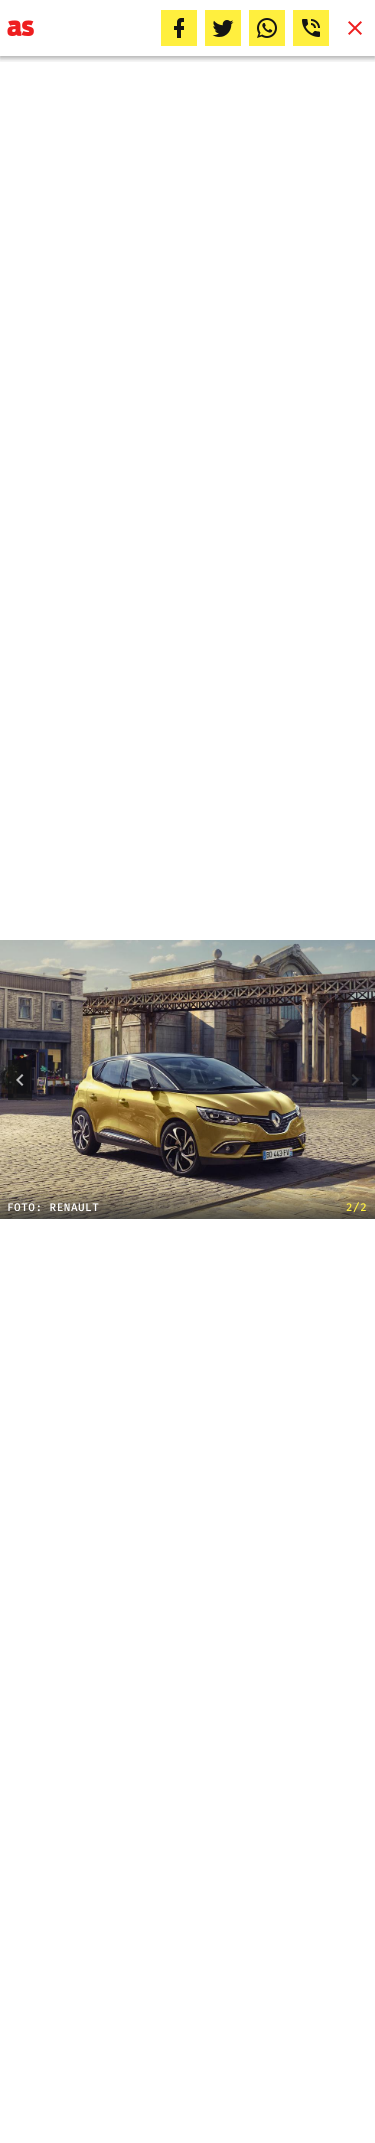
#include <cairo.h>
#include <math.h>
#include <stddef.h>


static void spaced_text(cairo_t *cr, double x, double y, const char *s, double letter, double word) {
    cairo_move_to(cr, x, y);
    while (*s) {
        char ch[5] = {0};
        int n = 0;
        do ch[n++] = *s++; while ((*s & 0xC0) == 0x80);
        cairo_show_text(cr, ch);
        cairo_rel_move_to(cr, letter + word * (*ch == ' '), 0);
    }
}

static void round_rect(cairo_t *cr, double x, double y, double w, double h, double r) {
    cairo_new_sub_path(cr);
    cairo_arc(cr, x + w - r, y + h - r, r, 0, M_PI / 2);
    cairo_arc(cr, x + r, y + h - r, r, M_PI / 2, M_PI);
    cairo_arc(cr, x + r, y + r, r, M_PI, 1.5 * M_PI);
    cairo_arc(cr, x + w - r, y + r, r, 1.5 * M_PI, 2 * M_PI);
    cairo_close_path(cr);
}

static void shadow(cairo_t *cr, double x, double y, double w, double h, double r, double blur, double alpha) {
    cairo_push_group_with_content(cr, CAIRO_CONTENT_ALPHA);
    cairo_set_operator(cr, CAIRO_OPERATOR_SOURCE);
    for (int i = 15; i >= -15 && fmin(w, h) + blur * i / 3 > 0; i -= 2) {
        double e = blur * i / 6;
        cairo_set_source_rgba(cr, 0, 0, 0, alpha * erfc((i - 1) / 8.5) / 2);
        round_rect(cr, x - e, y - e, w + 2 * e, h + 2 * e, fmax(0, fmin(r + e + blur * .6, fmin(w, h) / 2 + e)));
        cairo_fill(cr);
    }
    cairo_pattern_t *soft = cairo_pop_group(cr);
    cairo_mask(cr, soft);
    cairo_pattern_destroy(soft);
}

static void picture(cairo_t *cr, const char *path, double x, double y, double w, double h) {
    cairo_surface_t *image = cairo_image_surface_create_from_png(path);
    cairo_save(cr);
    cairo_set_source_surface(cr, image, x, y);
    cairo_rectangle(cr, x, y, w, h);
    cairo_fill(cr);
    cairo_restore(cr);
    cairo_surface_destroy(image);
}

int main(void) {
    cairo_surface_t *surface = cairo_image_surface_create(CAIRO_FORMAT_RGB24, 375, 2143);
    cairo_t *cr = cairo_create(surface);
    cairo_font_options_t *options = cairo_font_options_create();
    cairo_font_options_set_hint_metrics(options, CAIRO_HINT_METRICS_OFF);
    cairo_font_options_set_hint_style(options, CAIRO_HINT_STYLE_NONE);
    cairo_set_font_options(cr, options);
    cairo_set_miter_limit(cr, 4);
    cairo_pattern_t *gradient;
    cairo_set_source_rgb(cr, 1, 1, 1);
    cairo_paint(cr);
    cairo_save(cr);
    cairo_rectangle(cr, 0, 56, 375, 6);
    cairo_clip(cr);
    cairo_set_source_rgb(cr, 0, 0, 0);
    shadow(cr, 0, 2, 375, 56, 0, 4, 0.13);
    shadow(cr, 0, 2, 375, 56, 0, 2.5, 0.26);
    cairo_restore(cr);
    picture(cr, "img1.png", 7, 20, 27, 16);
    cairo_set_source_rgb(cr, 1, 0.937, 0.243);
    cairo_rectangle(cr, 161, 10, 36, 36);
    cairo_fill(cr);
    picture(cr, "img2.png", 174, 18, 10, 20);
    cairo_rectangle(cr, 205, 10, 36, 36);
    cairo_fill(cr);
    picture(cr, "img3.png", 212, 20, 22, 17);
    cairo_rectangle(cr, 249, 10, 36, 36);
    cairo_fill(cr);
    picture(cr, "img4.png", 257, 18, 20, 20);
    cairo_rectangle(cr, 293, 10, 36, 36);
    cairo_fill(cr);
    picture(cr, "img5.png", 302, 19, 18, 18);
    picture(cr, "img6.png", 348, 21, 14, 14);
    picture(cr, "img9.png", 0, 940, 375, 279);
    cairo_set_source_rgba(cr, 0.078, 0.078, 0.078, 0.7);
    cairo_rectangle(cr, 8, 1060, 24, 40);
    cairo_fill(cr);
    picture(cr, "img7.png", 16, 1074, 8, 12);
    cairo_set_source_rgba(cr, 0.078, 0.078, 0.078, 0.5);
    cairo_rectangle(cr, 343, 1060, 24, 40);
    cairo_fill(cr);
    picture(cr, "img8.png", 351, 1074, 8, 12);
    gradient = cairo_pattern_create_linear(188, 1219, 188, 1039);
    cairo_pattern_add_color_stop_rgba(gradient, 0, 0.212, 0.212, 0.212, 0.8);
    cairo_pattern_add_color_stop_rgba(gradient, 0.16, 0.212, 0.212, 0.212, 0);
    cairo_set_source(cr, gradient);
    cairo_pattern_destroy(gradient);
    cairo_rectangle(cr, 0, 1191, 375, 28);
    cairo_fill(cr);
    cairo_select_font_face(cr, "Fira Mono Medium", CAIRO_FONT_SLANT_NORMAL, CAIRO_FONT_WEIGHT_NORMAL);
    cairo_set_font_size(cr, 11);
    cairo_set_source_rgb(cr, 1, 1, 1);
    spaced_text(cr, 7, 1211, "FOTO: RENAULT", 0.5, 0);
    cairo_set_source_rgb(cr, 1, 0.937, 0.243);
    spaced_text(cr, 346, 1211, "2/2", 0.5, 0);
    cairo_surface_write_to_png(surface, "page.png");
    cairo_font_options_destroy(options);
    cairo_destroy(cr);
    cairo_surface_destroy(surface);
    return 0;
}
